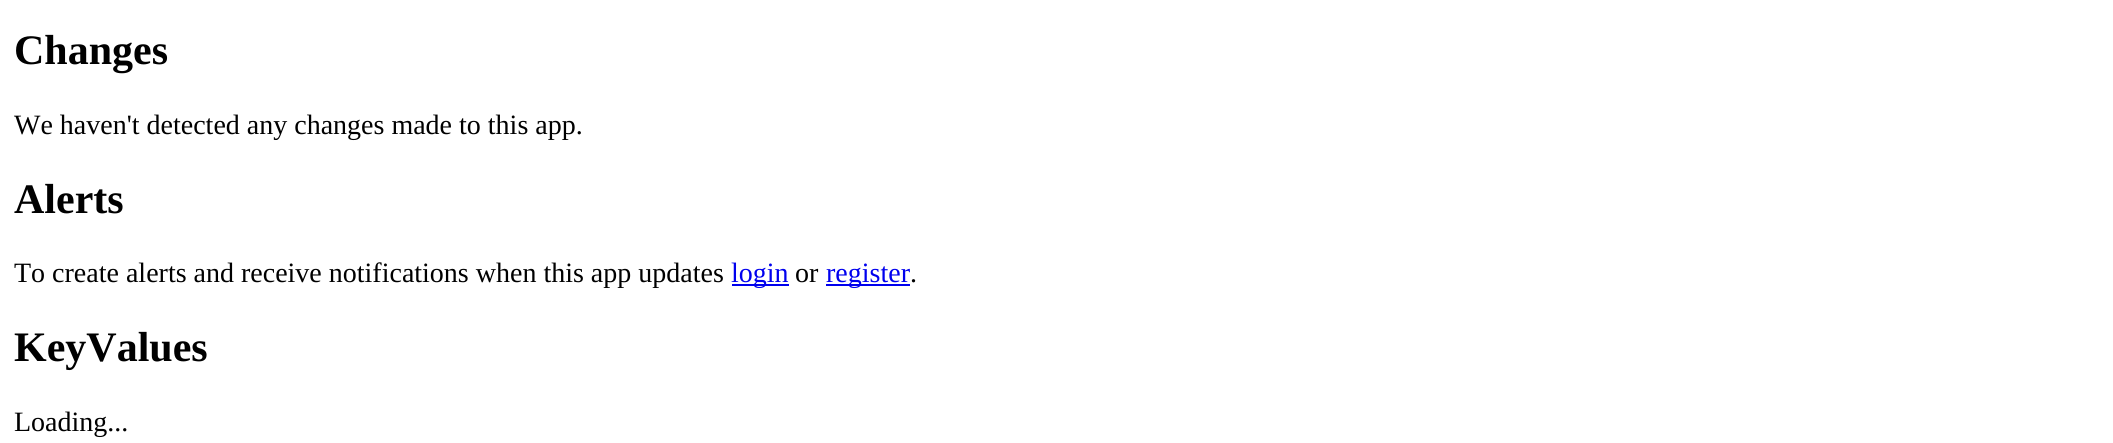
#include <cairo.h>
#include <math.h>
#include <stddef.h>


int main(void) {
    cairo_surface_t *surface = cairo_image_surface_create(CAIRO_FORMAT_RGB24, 2113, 443);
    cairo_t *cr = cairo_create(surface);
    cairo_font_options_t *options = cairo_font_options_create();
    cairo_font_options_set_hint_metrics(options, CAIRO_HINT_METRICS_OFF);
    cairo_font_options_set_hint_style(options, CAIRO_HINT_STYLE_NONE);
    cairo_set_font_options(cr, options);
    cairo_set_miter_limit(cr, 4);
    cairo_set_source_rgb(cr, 1, 1, 1);
    cairo_paint(cr);
    cairo_select_font_face(cr, "Liberation Serif", CAIRO_FONT_SLANT_NORMAL, CAIRO_FONT_WEIGHT_BOLD);
    cairo_set_font_size(cr, 42);
    cairo_set_source_rgb(cr, 0, 0, 0);
    cairo_move_to(cr, 14, 64);
    cairo_show_text(cr, "Changes");
    cairo_select_font_face(cr, "Liberation Serif", CAIRO_FONT_SLANT_NORMAL, CAIRO_FONT_WEIGHT_NORMAL);
    cairo_set_font_size(cr, 28);
    cairo_move_to(cr, 14, 134);
    cairo_show_text(cr, "We haven't detected any changes made to this app.");
    cairo_select_font_face(cr, "Liberation Serif", CAIRO_FONT_SLANT_NORMAL, CAIRO_FONT_WEIGHT_BOLD);
    cairo_set_font_size(cr, 42);
    cairo_move_to(cr, 14, 213);
    cairo_show_text(cr, "Alerts");
    cairo_select_font_face(cr, "Liberation Serif", CAIRO_FONT_SLANT_NORMAL, CAIRO_FONT_WEIGHT_NORMAL);
    cairo_set_font_size(cr, 28);
    cairo_move_to(cr, 14, 282);
    cairo_show_text(cr, "To create alerts and receive notifications when this app updates");
    cairo_set_source_rgb(cr, 0, 0, 0.933);
    cairo_rectangle(cr, 732, 284, 57, 2);
    cairo_fill(cr);
    cairo_move_to(cr, 731, 282);
    cairo_show_text(cr, "login");
    cairo_set_source_rgb(cr, 0, 0, 0);
    cairo_move_to(cr, 795, 282);
    cairo_show_text(cr, "or");
    cairo_set_source_rgb(cr, 0, 0, 0.933);
    cairo_rectangle(cr, 826, 284, 84, 2);
    cairo_fill(cr);
    cairo_move_to(cr, 826, 282);
    cairo_show_text(cr, "register");
    cairo_set_source_rgb(cr, 0, 0, 0);
    cairo_move_to(cr, 910, 282);
    cairo_show_text(cr, ".");
    cairo_select_font_face(cr, "Liberation Serif", CAIRO_FONT_SLANT_NORMAL, CAIRO_FONT_WEIGHT_BOLD);
    cairo_set_font_size(cr, 42);
    cairo_move_to(cr, 14, 361);
    cairo_show_text(cr, "KeyValues");
    cairo_select_font_face(cr, "Liberation Serif", CAIRO_FONT_SLANT_NORMAL, CAIRO_FONT_WEIGHT_NORMAL);
    cairo_set_font_size(cr, 28);
    cairo_move_to(cr, 14, 431);
    cairo_show_text(cr, "Loading...");
    cairo_surface_write_to_png(surface, "page.png");
    cairo_font_options_destroy(options);
    cairo_destroy(cr);
    cairo_surface_destroy(surface);
    return 0;
}
